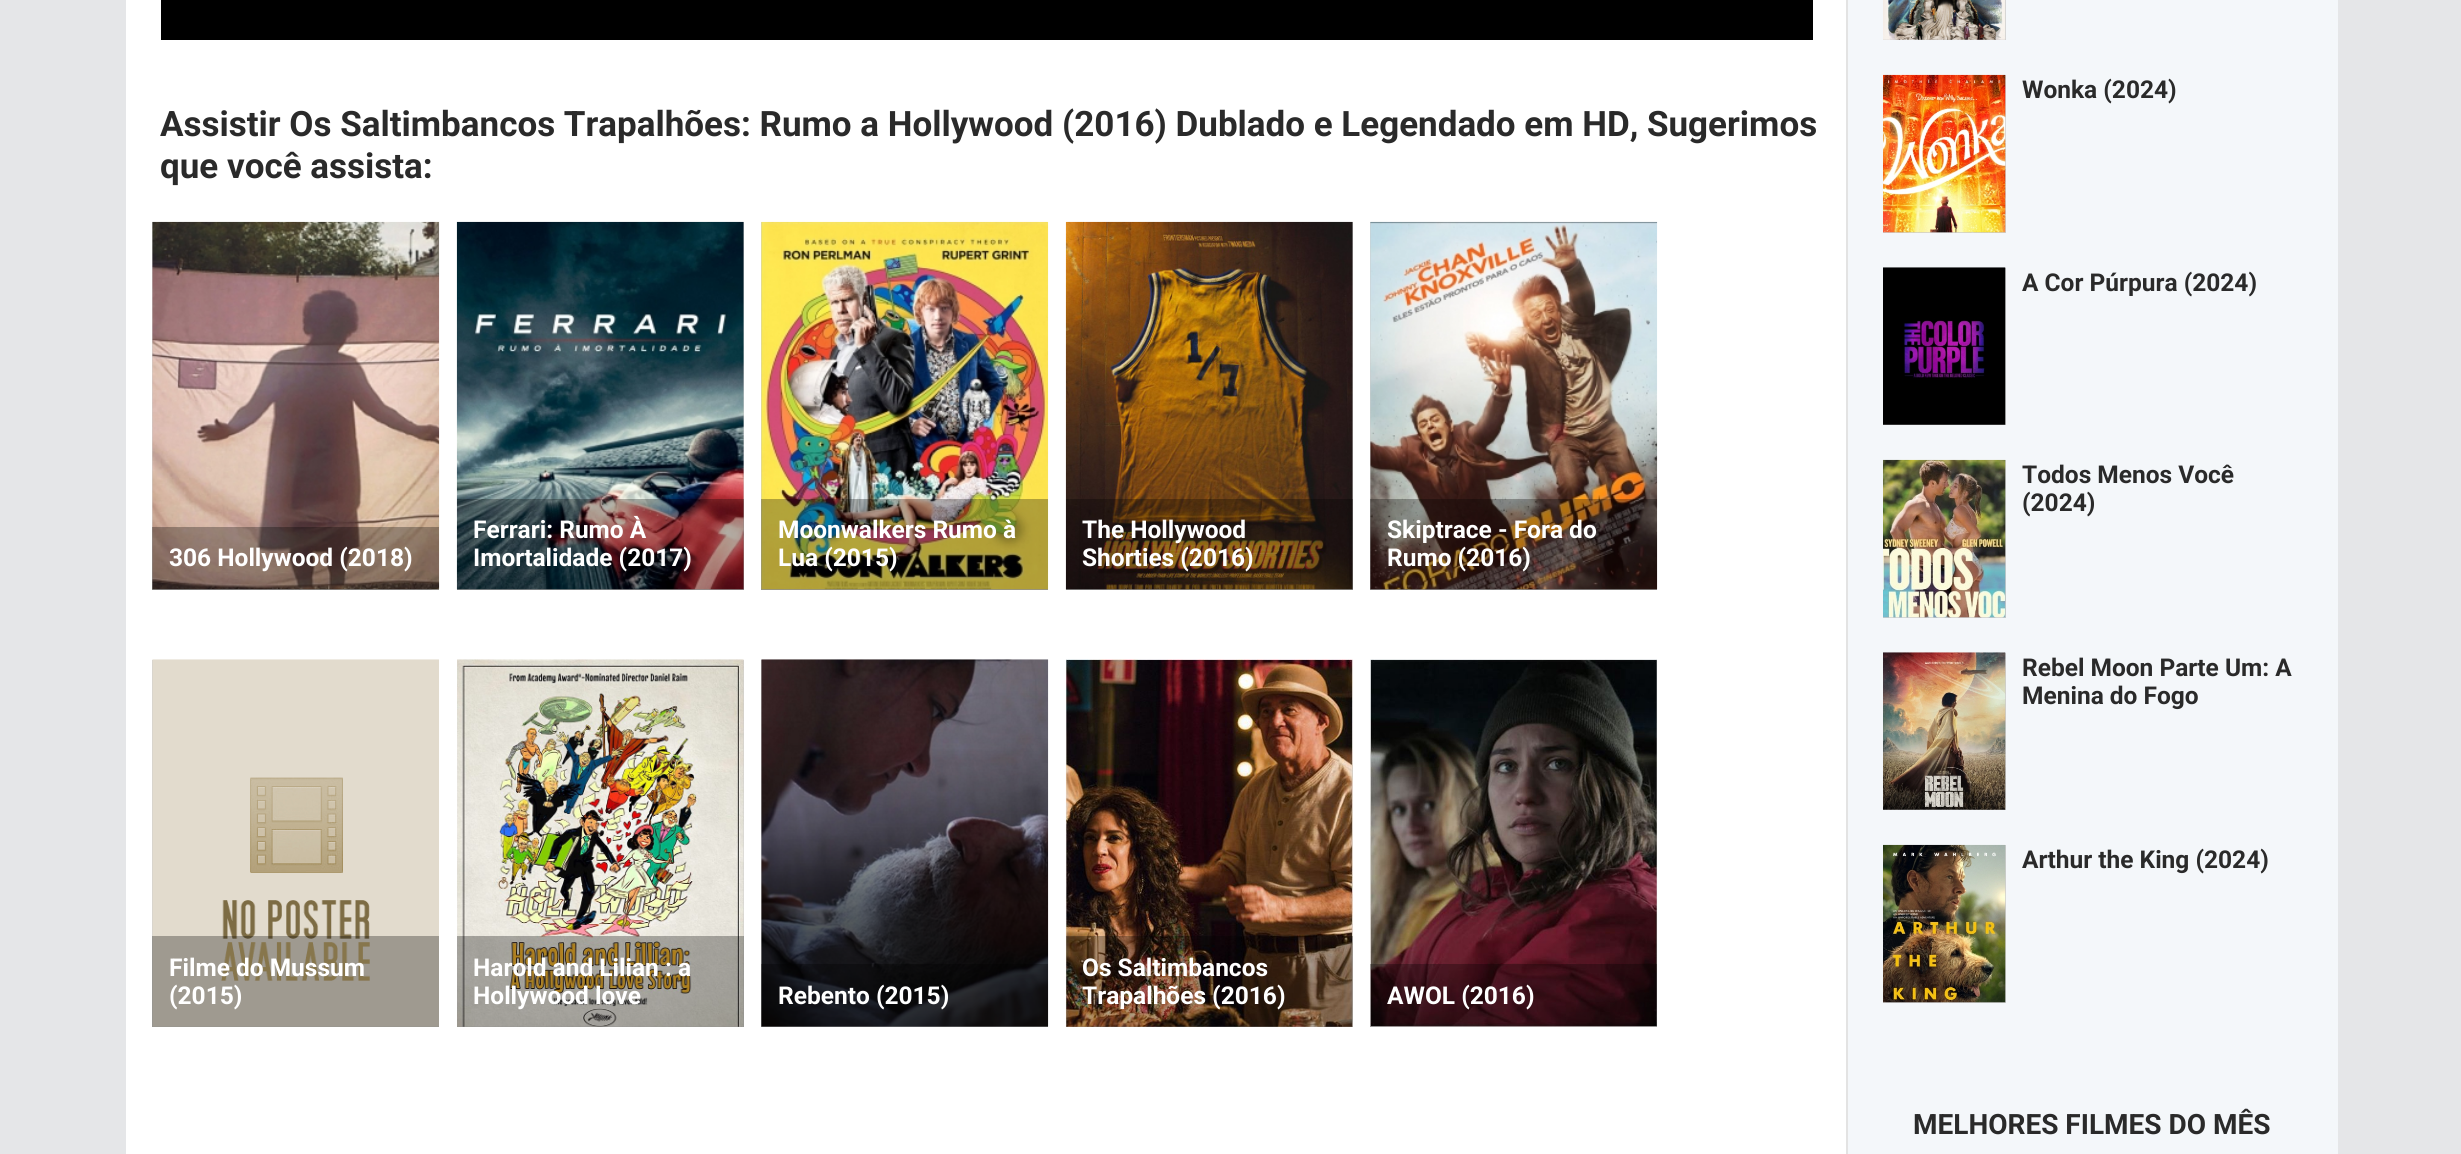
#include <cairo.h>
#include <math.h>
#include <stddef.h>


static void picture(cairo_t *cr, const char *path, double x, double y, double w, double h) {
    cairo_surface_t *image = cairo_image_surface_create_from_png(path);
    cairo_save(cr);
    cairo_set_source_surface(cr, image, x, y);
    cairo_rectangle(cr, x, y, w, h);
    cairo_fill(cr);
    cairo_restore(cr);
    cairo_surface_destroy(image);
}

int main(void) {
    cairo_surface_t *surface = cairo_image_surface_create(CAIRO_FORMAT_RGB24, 2461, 1154);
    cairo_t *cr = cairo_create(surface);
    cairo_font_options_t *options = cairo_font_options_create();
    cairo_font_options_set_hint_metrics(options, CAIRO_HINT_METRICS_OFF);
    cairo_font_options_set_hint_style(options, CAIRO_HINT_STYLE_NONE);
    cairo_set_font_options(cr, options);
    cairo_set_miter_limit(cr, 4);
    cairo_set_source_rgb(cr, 0.898, 0.902, 0.91);
    cairo_paint(cr);
    cairo_set_source_rgb(cr, 1, 1, 1);
    cairo_rectangle(cr, 126, 0, 1720, 1154);
    cairo_fill(cr);
    cairo_set_source_rgb(cr, 0.957, 0.965, 0.98);
    cairo_rectangle(cr, 1848, 0, 490, 1154);
    cairo_fill(cr);
    cairo_set_source_rgb(cr, 0.89, 0.89, 0.89);
    cairo_rectangle(cr, 1846, 0, 2, 1154);
    cairo_fill(cr);
    cairo_set_source_rgb(cr, 0, 0, 0);
    cairo_rectangle(cr, 161, 0, 1652, 40);
    cairo_fill(cr);
    cairo_select_font_face(cr, "Roboto", CAIRO_FONT_SLANT_NORMAL, CAIRO_FONT_WEIGHT_BOLD);
    cairo_set_font_size(cr, 35);
    cairo_set_source_rgb(cr, 0.165, 0.165, 0.165);
    cairo_move_to(cr, 160, 136);
    cairo_show_text(cr, "Assistir Os Saltimbancos Trapalhões: Rumo a Hollywood (2016) Dublado e Legendado em HD, Sugerimos");
    cairo_move_to(cr, 160, 178);
    cairo_show_text(cr, "que você assista:");
    cairo_set_source_rgb(cr, 0.8, 0.8, 0.8);
    cairo_rectangle(cr, 152, 222, 287, 368);
    cairo_fill(cr);
    picture(cr, "img1.png", 152, 221, 288, 369);
    cairo_set_source_rgba(cr, 0, 0, 0, 0.3);
    cairo_rectangle(cr, 152, 527, 287, 63);
    cairo_fill(cr);
    cairo_set_font_size(cr, 24.5);
    cairo_set_source_rgb(cr, 1, 1, 1);
    cairo_move_to(cr, 169, 566);
    cairo_show_text(cr, "306 Hollywood (2018)");
    cairo_set_source_rgb(cr, 0.8, 0.8, 0.8);
    cairo_rectangle(cr, 457, 222, 287, 368);
    cairo_fill(cr);
    picture(cr, "img2.png", 456, 221, 288, 369);
    cairo_set_source_rgba(cr, 0, 0, 0, 0.3);
    cairo_rectangle(cr, 457, 499, 287, 91);
    cairo_fill(cr);
    cairo_set_source_rgb(cr, 1, 1, 1);
    cairo_move_to(cr, 473, 538);
    cairo_show_text(cr, "Ferrari: Rumo À");
    cairo_move_to(cr, 473, 566);
    cairo_show_text(cr, "Imortalidade (2017)");
    cairo_set_source_rgb(cr, 0.8, 0.8, 0.8);
    cairo_rectangle(cr, 761, 222, 287, 368);
    cairo_fill(cr);
    picture(cr, "img3.png", 761, 221, 288, 369);
    cairo_set_source_rgba(cr, 0, 0, 0, 0.3);
    cairo_rectangle(cr, 761, 499, 287, 91);
    cairo_fill(cr);
    cairo_set_source_rgb(cr, 1, 1, 1);
    cairo_move_to(cr, 778, 538);
    cairo_show_text(cr, "Moonwalkers Rumo à");
    cairo_move_to(cr, 778, 566);
    cairo_show_text(cr, "Lua (2015)");
    cairo_set_source_rgb(cr, 0.8, 0.8, 0.8);
    cairo_rectangle(cr, 1066, 222, 287, 368);
    cairo_fill(cr);
    picture(cr, "img4.png", 1065, 221, 288, 369);
    cairo_set_source_rgba(cr, 0, 0, 0, 0.3);
    cairo_rectangle(cr, 1066, 499, 287, 91);
    cairo_fill(cr);
    cairo_set_source_rgb(cr, 1, 1, 1);
    cairo_move_to(cr, 1082, 538);
    cairo_show_text(cr, "The Hollywood");
    cairo_move_to(cr, 1082, 566);
    cairo_show_text(cr, "Shorties (2016)");
    cairo_set_source_rgb(cr, 0.8, 0.8, 0.8);
    cairo_rectangle(cr, 1370, 222, 287, 368);
    cairo_fill(cr);
    picture(cr, "img5.png", 1370, 221, 288, 369);
    cairo_set_source_rgba(cr, 0, 0, 0, 0.3);
    cairo_rectangle(cr, 1370, 499, 287, 91);
    cairo_fill(cr);
    cairo_set_source_rgb(cr, 1, 1, 1);
    cairo_move_to(cr, 1387, 538);
    cairo_show_text(cr, "Skiptrace - Fora do");
    cairo_move_to(cr, 1387, 566);
    cairo_show_text(cr, "Rumo (2016)");
    cairo_set_source_rgb(cr, 0.8, 0.8, 0.8);
    cairo_rectangle(cr, 152, 660, 287, 367);
    cairo_fill(cr);
    picture(cr, "img6.png", 152, 659, 287, 368);
    cairo_set_source_rgba(cr, 0, 0, 0, 0.3);
    cairo_rectangle(cr, 152, 936, 287, 91);
    cairo_fill(cr);
    cairo_set_source_rgb(cr, 1, 1, 1);
    cairo_move_to(cr, 169, 976);
    cairo_show_text(cr, "Filme do Mussum");
    cairo_move_to(cr, 169, 1004);
    cairo_show_text(cr, "(2015)");
    cairo_set_source_rgb(cr, 0.8, 0.8, 0.8);
    cairo_rectangle(cr, 457, 660, 287, 367);
    cairo_fill(cr);
    picture(cr, "img7.png", 457, 659, 287, 368);
    cairo_set_source_rgba(cr, 0, 0, 0, 0.3);
    cairo_rectangle(cr, 457, 936, 287, 91);
    cairo_fill(cr);
    cairo_set_source_rgb(cr, 1, 1, 1);
    cairo_move_to(cr, 473, 976);
    cairo_show_text(cr, "Harold and Lilian : a");
    cairo_move_to(cr, 473, 1004);
    cairo_show_text(cr, "Hollywood love");
    cairo_set_source_rgb(cr, 0.8, 0.8, 0.8);
    cairo_rectangle(cr, 761, 660, 287, 367);
    cairo_fill(cr);
    picture(cr, "img8.png", 761, 659, 288, 368);
    cairo_set_source_rgba(cr, 0, 0, 0, 0.3);
    cairo_rectangle(cr, 761, 964, 287, 63);
    cairo_fill(cr);
    cairo_set_source_rgb(cr, 1, 1, 1);
    cairo_move_to(cr, 778, 1004);
    cairo_show_text(cr, "Rebento (2015)");
    cairo_set_source_rgb(cr, 0.8, 0.8, 0.8);
    cairo_rectangle(cr, 1066, 660, 287, 367);
    cairo_fill(cr);
    picture(cr, "img9.png", 1065, 659, 288, 368);
    cairo_set_source_rgba(cr, 0, 0, 0, 0.3);
    cairo_rectangle(cr, 1066, 936, 287, 91);
    cairo_fill(cr);
    cairo_set_source_rgb(cr, 1, 1, 1);
    cairo_move_to(cr, 1082, 976);
    cairo_show_text(cr, "Os Saltimbancos");
    cairo_move_to(cr, 1082, 1004);
    cairo_show_text(cr, "Trapalhões (2016)");
    cairo_set_source_rgb(cr, 0.8, 0.8, 0.8);
    cairo_rectangle(cr, 1370, 660, 287, 367);
    cairo_fill(cr);
    picture(cr, "img10.png", 1370, 659, 288, 368);
    cairo_set_source_rgba(cr, 0, 0, 0, 0.3);
    cairo_rectangle(cr, 1370, 964, 287, 63);
    cairo_fill(cr);
    cairo_set_source_rgb(cr, 1, 1, 1);
    cairo_move_to(cr, 1387, 1004);
    cairo_show_text(cr, "AWOL (2016)");
    cairo_set_source_rgb(cr, 0.8, 0.8, 0.8);
    cairo_rectangle(cr, 1883, 0, 123, 40);
    cairo_fill(cr);
    picture(cr, "img11.png", 1883, 0, 123, 40);
    cairo_rectangle(cr, 1883, 75, 123, 158);
    cairo_fill(cr);
    picture(cr, "img12.png", 1883, 74, 123, 159);
    cairo_set_source_rgb(cr, 0.165, 0.165, 0.165);
    cairo_move_to(cr, 2022, 98);
    cairo_show_text(cr, "Wonka (2024)");
    cairo_set_source_rgb(cr, 0.8, 0.8, 0.8);
    cairo_rectangle(cr, 1883, 268, 123, 157);
    cairo_fill(cr);
    picture(cr, "img13.png", 1883, 267, 123, 158);
    cairo_set_source_rgb(cr, 0.165, 0.165, 0.165);
    cairo_move_to(cr, 2022, 291);
    cairo_show_text(cr, "A Cor Púrpura (2024)");
    cairo_set_source_rgb(cr, 0.8, 0.8, 0.8);
    cairo_rectangle(cr, 1883, 460, 123, 158);
    cairo_fill(cr);
    picture(cr, "img14.png", 1883, 459, 123, 159);
    cairo_set_source_rgb(cr, 0.165, 0.165, 0.165);
    cairo_move_to(cr, 2022, 483);
    cairo_show_text(cr, "Todos Menos Você");
    cairo_move_to(cr, 2022, 511);
    cairo_show_text(cr, "(2024)");
    cairo_set_source_rgb(cr, 0.8, 0.8, 0.8);
    cairo_rectangle(cr, 1883, 653, 123, 157);
    cairo_fill(cr);
    picture(cr, "img15.png", 1883, 652, 123, 158);
    cairo_set_source_rgb(cr, 0.165, 0.165, 0.165);
    cairo_move_to(cr, 2022, 676);
    cairo_show_text(cr, "Rebel Moon Parte Um: A");
    cairo_move_to(cr, 2022, 704);
    cairo_show_text(cr, "Menina do Fogo");
    cairo_set_source_rgb(cr, 0.8, 0.8, 0.8);
    cairo_rectangle(cr, 1883, 845, 123, 158);
    cairo_fill(cr);
    picture(cr, "img16.png", 1883, 844, 123, 159);
    cairo_set_source_rgb(cr, 0.165, 0.165, 0.165);
    cairo_move_to(cr, 2022, 868);
    cairo_show_text(cr, "Arthur the King (2024)");
    cairo_set_font_size(cr, 28);
    cairo_move_to(cr, 1913, 1134);
    cairo_show_text(cr, "MELHORES FILMES DO MÊS");
    cairo_surface_write_to_png(surface, "page.png");
    cairo_font_options_destroy(options);
    cairo_destroy(cr);
    cairo_surface_destroy(surface);
    return 0;
}
